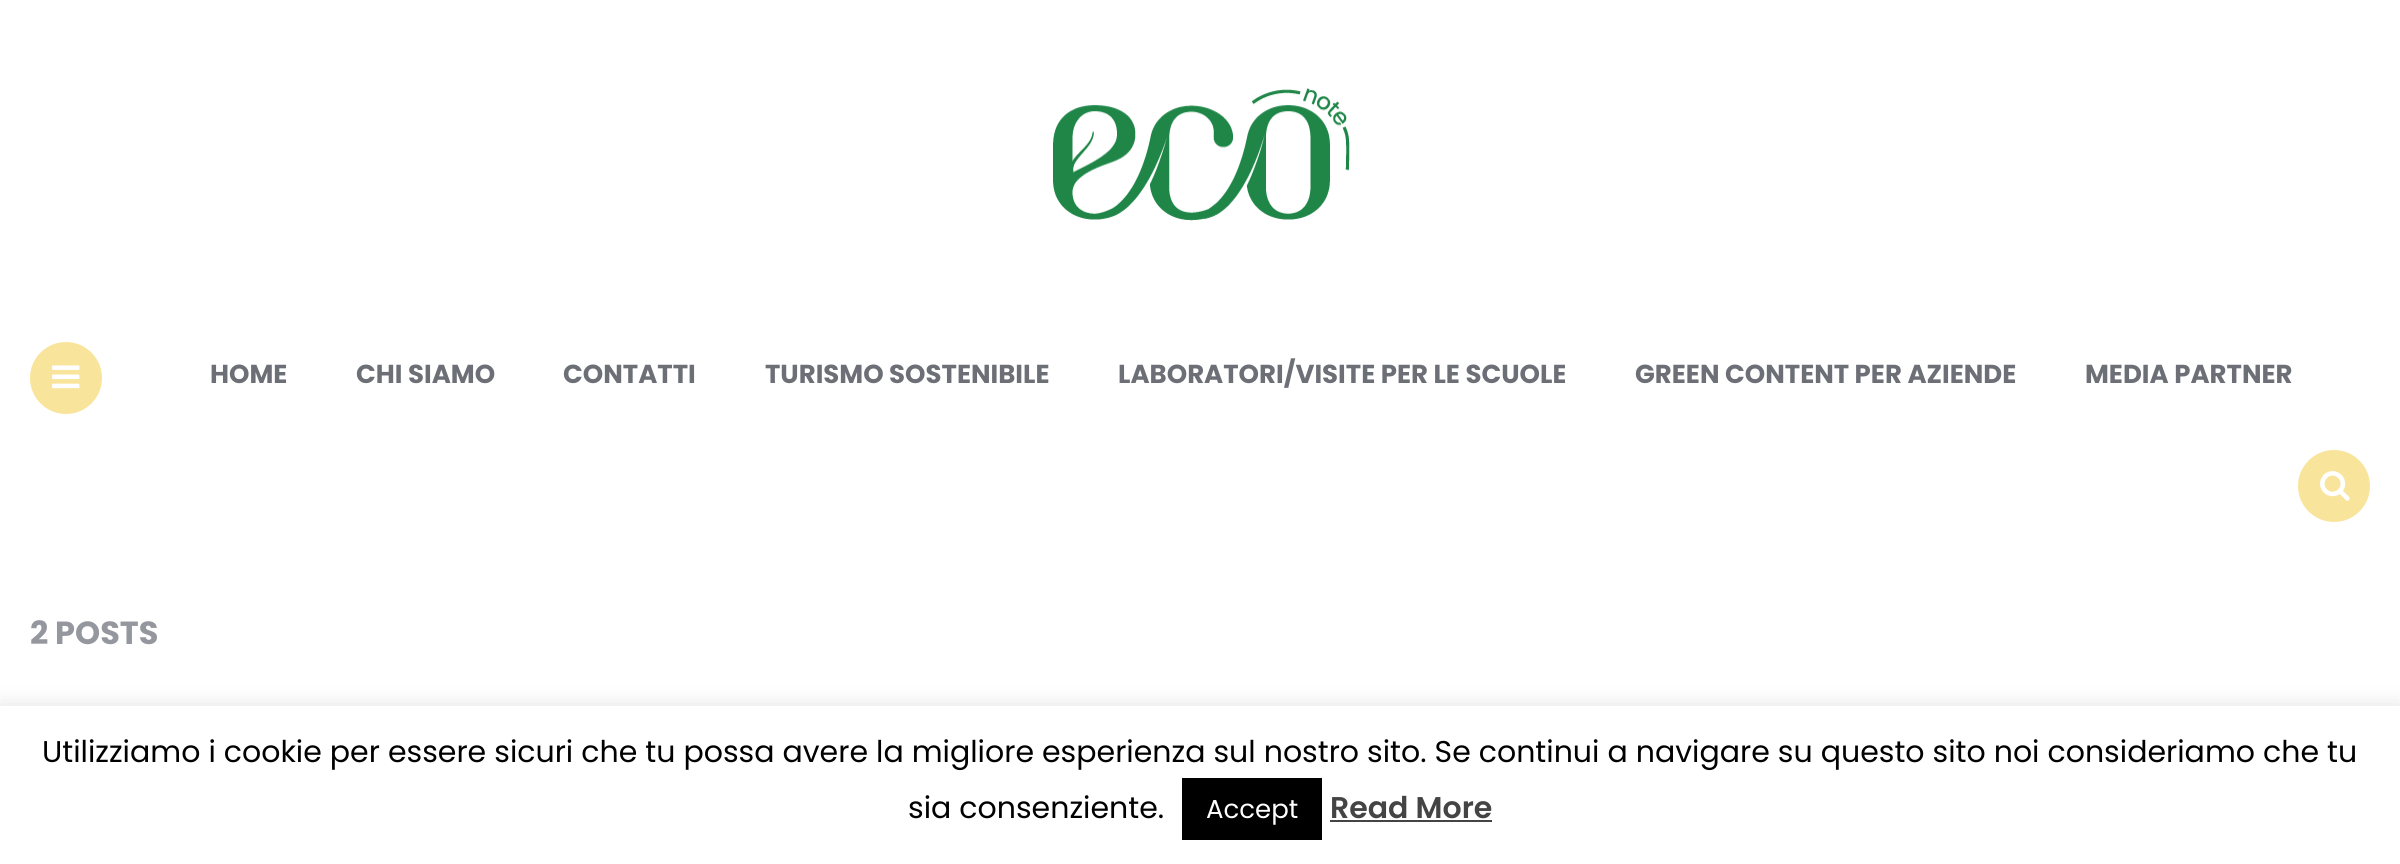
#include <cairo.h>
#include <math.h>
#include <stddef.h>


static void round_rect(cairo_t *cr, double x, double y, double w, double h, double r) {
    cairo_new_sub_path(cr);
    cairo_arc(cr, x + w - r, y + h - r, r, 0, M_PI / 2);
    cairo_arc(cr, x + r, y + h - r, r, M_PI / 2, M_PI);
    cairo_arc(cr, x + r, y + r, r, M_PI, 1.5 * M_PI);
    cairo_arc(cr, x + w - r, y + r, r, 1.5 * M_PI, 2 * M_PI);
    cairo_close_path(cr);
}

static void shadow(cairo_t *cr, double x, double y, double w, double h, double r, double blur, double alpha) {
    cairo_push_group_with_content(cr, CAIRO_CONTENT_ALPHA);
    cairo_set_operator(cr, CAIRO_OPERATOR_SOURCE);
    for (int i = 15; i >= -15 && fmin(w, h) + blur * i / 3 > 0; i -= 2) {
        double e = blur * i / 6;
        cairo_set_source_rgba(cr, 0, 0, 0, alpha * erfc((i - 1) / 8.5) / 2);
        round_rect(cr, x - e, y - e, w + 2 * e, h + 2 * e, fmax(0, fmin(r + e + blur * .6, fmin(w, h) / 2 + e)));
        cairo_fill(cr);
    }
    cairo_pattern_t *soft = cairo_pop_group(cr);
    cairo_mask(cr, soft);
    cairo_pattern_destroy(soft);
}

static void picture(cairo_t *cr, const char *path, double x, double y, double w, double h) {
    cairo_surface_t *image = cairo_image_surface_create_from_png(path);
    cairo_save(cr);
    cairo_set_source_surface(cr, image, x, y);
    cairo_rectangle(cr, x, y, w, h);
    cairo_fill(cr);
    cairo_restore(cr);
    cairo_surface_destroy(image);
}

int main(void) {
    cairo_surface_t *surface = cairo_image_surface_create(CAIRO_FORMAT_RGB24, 2400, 864);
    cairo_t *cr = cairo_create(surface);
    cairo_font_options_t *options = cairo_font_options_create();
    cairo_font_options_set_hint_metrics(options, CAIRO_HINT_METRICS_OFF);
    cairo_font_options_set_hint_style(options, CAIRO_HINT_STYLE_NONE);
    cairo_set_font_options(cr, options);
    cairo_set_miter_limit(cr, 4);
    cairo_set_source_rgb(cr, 1, 1, 1);
    cairo_paint(cr);
    picture(cr, "img1.png", 1053, 88, 297, 133);
    cairo_set_source_rgb(cr, 0.976, 0.894, 0.608);
    cairo_arc(cr, 66, 378, 36, 0, 2 * M_PI);
    cairo_fill(cr);
    picture(cr, "img2.png", 52, 365, 28, 24);
    cairo_select_font_face(cr, "Poppins", CAIRO_FONT_SLANT_NORMAL, CAIRO_FONT_WEIGHT_BOLD);
    cairo_set_font_size(cr, 26);
    cairo_set_source_rgb(cr, 0.424, 0.435, 0.463);
    cairo_move_to(cr, 210, 383);
    cairo_show_text(cr, "HOME");
    cairo_move_to(cr, 356, 383);
    cairo_show_text(cr, "CHI SIAMO");
    cairo_move_to(cr, 563, 383);
    cairo_show_text(cr, "CONTATTI");
    cairo_move_to(cr, 765, 383);
    cairo_show_text(cr, "TURISMO SOSTENIBILE");
    cairo_move_to(cr, 1118, 383);
    cairo_show_text(cr, "LABORATORI/VISITE PER LE SCUOLE");
    cairo_move_to(cr, 1635, 383);
    cairo_show_text(cr, "GREEN CONTENT PER AZIENDE");
    cairo_move_to(cr, 2085, 383);
    cairo_show_text(cr, "MEDIA PARTNER");
    cairo_set_source_rgb(cr, 0.976, 0.894, 0.608);
    cairo_new_path(cr);
    cairo_arc(cr, 2334, 486, 36, 0, 2 * M_PI);
    cairo_fill(cr);
    picture(cr, "img3.png", 2320, 471, 30, 30);
    cairo_set_font_size(cr, 32);
    cairo_set_source_rgb(cr, 0.58, 0.592, 0.62);
    cairo_move_to(cr, 30, 644);
    cairo_show_text(cr, "2 POSTS");
    cairo_set_source_rgb(cr, 0.675, 0.671, 0.671);
    shadow(cr, 0, 704, 2400, 158, 0, 10, 0.3);
    cairo_set_source_rgb(cr, 1, 1, 1);
    cairo_rectangle(cr, 0, 706, 2400, 158);
    cairo_fill(cr);
    cairo_select_font_face(cr, "Poppins", CAIRO_FONT_SLANT_NORMAL, CAIRO_FONT_WEIGHT_NORMAL);
    cairo_set_font_size(cr, 30);
    cairo_set_source_rgb(cr, 0, 0, 0);
    cairo_move_to(cr, 42, 762);
    cairo_show_text(cr, "Utilizziamo i cookie per essere sicuri che tu possa avere la migliore esperienza sul nostro sito. Se continui a navigare su questo sito noi consideriamo che tu");
    cairo_move_to(cr, 908, 818);
    cairo_show_text(cr, "sia consenziente.");
    cairo_rectangle(cr, 1182, 778, 140, 62);
    cairo_fill(cr);
    cairo_set_font_size(cr, 26);
    cairo_set_source_rgb(cr, 1, 1, 1);
    cairo_move_to(cr, 1206, 818);
    cairo_show_text(cr, "Accept");
    cairo_select_font_face(cr, "Poppins SemiBold", CAIRO_FONT_SLANT_NORMAL, CAIRO_FONT_WEIGHT_NORMAL);
    cairo_set_font_size(cr, 30);
    cairo_set_source_rgb(cr, 0.267, 0.267, 0.267);
    cairo_move_to(cr, 1330, 818);
    cairo_show_text(cr, "Read More");
    cairo_rectangle(cr, 1330, 820, 162, 2);
    cairo_fill(cr);
    cairo_surface_write_to_png(surface, "page.png");
    cairo_font_options_destroy(options);
    cairo_destroy(cr);
    cairo_surface_destroy(surface);
    return 0;
}
